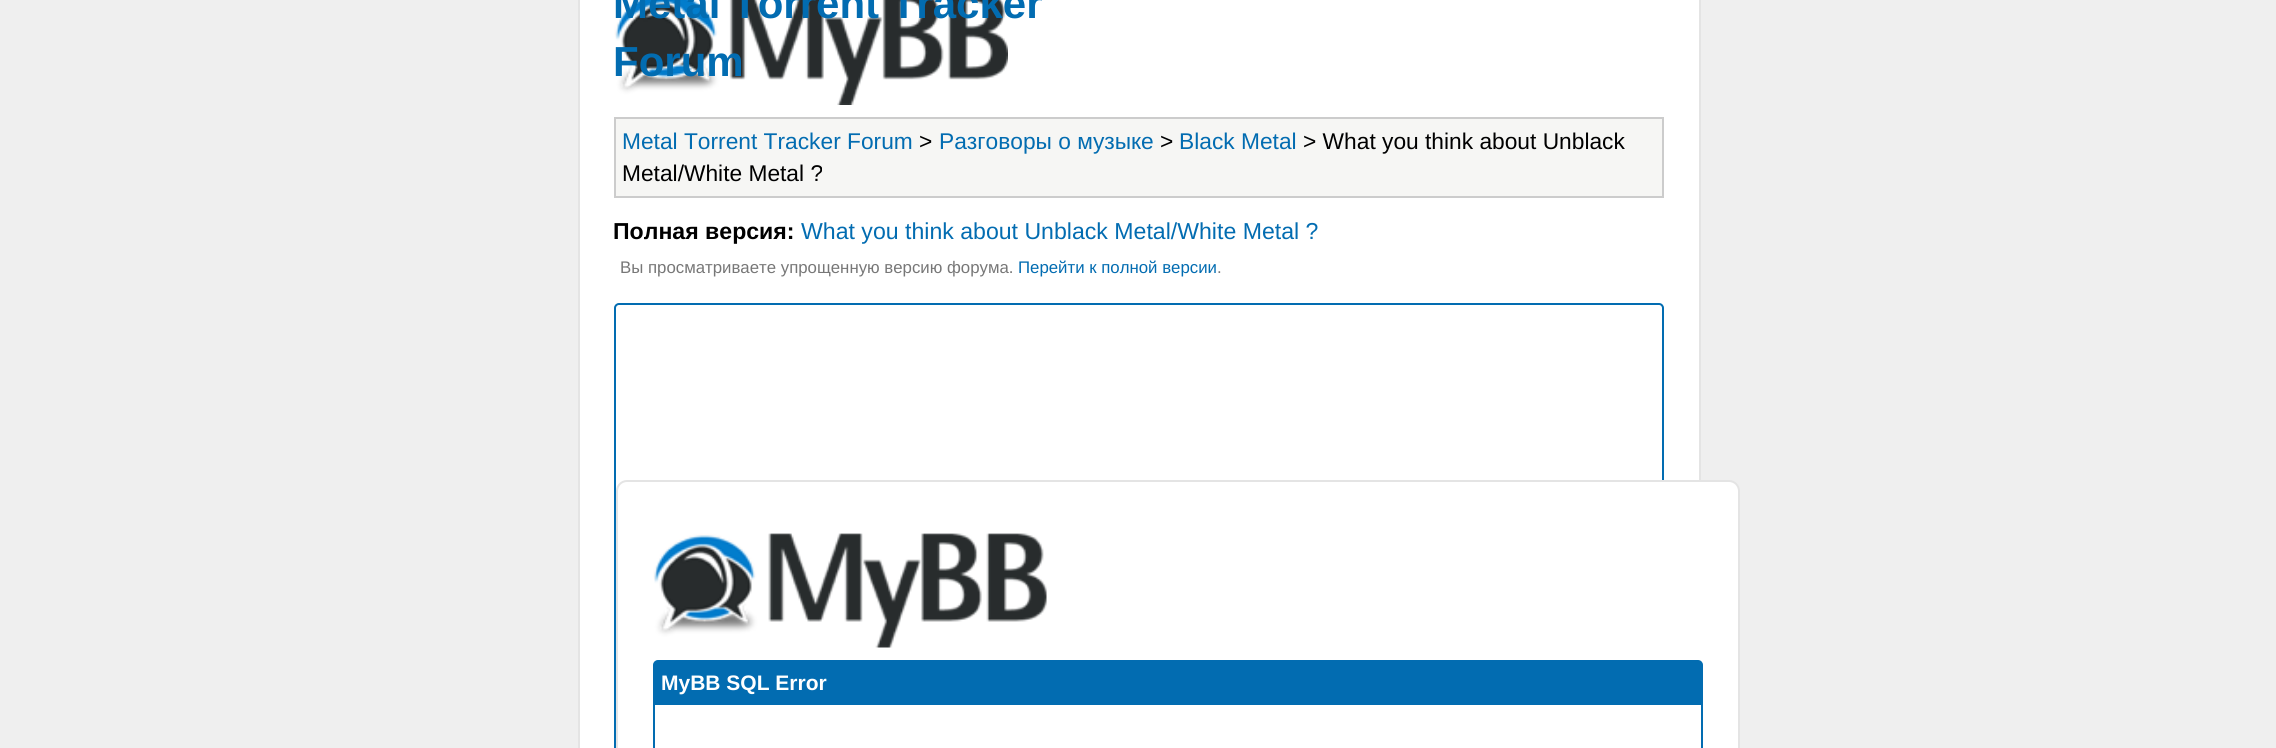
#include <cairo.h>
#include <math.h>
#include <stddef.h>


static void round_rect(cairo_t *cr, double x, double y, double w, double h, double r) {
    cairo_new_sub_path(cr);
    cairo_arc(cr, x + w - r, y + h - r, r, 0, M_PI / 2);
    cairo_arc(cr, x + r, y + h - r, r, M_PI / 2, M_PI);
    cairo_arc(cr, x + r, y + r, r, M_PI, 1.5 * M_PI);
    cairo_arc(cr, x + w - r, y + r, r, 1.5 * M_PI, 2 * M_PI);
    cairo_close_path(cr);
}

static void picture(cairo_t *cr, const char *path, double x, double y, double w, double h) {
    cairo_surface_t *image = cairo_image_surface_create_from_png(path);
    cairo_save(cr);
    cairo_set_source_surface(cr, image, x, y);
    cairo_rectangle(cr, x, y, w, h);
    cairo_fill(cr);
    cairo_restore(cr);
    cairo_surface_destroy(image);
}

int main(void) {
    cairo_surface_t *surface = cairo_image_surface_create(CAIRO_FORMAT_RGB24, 2276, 748);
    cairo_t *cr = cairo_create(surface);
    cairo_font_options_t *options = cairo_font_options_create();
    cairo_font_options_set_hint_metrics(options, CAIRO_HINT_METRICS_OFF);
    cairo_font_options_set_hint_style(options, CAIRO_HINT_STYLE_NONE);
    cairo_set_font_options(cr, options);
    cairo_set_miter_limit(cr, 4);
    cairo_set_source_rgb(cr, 0.937, 0.937, 0.937);
    cairo_paint(cr);
    cairo_set_source_rgb(cr, 1, 1, 1);
    cairo_rectangle(cr, 579, -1, 1121, 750);
    cairo_fill_preserve(cr);
    cairo_set_source_rgb(cr, 0.894, 0.894, 0.894);
    cairo_stroke(cr);
    picture(cr, "img1.png", 614, 0, 394, 105);
    cairo_select_font_face(cr, "Liberation Sans", CAIRO_FONT_SLANT_NORMAL, CAIRO_FONT_WEIGHT_BOLD);
    cairo_set_font_size(cr, 42);
    cairo_set_source_rgb(cr, 0.008, 0.424, 0.694);
    cairo_move_to(cr, 613, 18);
    cairo_show_text(cr, "Metal Torrent Tracker");
    cairo_move_to(cr, 613, 76);
    cairo_show_text(cr, "Forum");
    cairo_set_source_rgb(cr, 0.961, 0.961, 0.957);
    cairo_rectangle(cr, 615, 118, 1048, 79);
    cairo_fill_preserve(cr);
    cairo_set_source_rgb(cr, 0.8, 0.8, 0.8);
    cairo_stroke(cr);
    cairo_select_font_face(cr, "Liberation Sans", CAIRO_FONT_SLANT_NORMAL, CAIRO_FONT_WEIGHT_NORMAL);
    cairo_set_font_size(cr, 22.75);
    cairo_set_source_rgb(cr, 0.008, 0.424, 0.694);
    cairo_move_to(cr, 622, 149);
    cairo_show_text(cr, "Metal Torrent Tracker Forum");
    cairo_set_source_rgb(cr, 0, 0, 0);
    cairo_move_to(cr, 919, 149);
    cairo_show_text(cr, ">");
    cairo_set_source_rgb(cr, 0.008, 0.424, 0.694);
    cairo_move_to(cr, 939, 149);
    cairo_show_text(cr, "Разговоры о музыке");
    cairo_set_source_rgb(cr, 0, 0, 0);
    cairo_move_to(cr, 1160, 149);
    cairo_show_text(cr, ">");
    cairo_set_source_rgb(cr, 0.008, 0.424, 0.694);
    cairo_move_to(cr, 1179, 149);
    cairo_show_text(cr, "Black Metal");
    cairo_set_source_rgb(cr, 0, 0, 0);
    cairo_move_to(cr, 1303, 149);
    cairo_show_text(cr, "> What you think about Unblack");
    cairo_move_to(cr, 622, 181);
    cairo_show_text(cr, "Metal/White Metal ?");
    cairo_select_font_face(cr, "Liberation Sans", CAIRO_FONT_SLANT_NORMAL, CAIRO_FONT_WEIGHT_BOLD);
    cairo_set_font_size(cr, 23.1);
    cairo_move_to(cr, 613, 239);
    cairo_show_text(cr, "Полная версия:");
    cairo_select_font_face(cr, "Liberation Sans", CAIRO_FONT_SLANT_NORMAL, CAIRO_FONT_WEIGHT_NORMAL);
    cairo_set_source_rgb(cr, 0.008, 0.424, 0.694);
    cairo_move_to(cr, 801, 239);
    cairo_show_text(cr, "What you think about Unblack Metal/White Metal ?");
    cairo_set_font_size(cr, 16.8);
    cairo_set_source_rgb(cr, 0.467, 0.467, 0.467);
    cairo_move_to(cr, 620, 273);
    cairo_show_text(cr, "Вы просматриваете yпpощеннyю веpсию форума.");
    cairo_set_source_rgb(cr, 0.008, 0.424, 0.694);
    cairo_move_to(cr, 1018, 273);
    cairo_show_text(cr, "Пеpейти к полной веpсии");
    cairo_set_source_rgb(cr, 0.467, 0.467, 0.467);
    cairo_move_to(cr, 1217, 273);
    cairo_show_text(cr, ".");
    round_rect(cr, 615, 304, 1048, 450, 4);
    cairo_set_source_rgb(cr, 0.008, 0.424, 0.694);
    cairo_stroke(cr);
    cairo_set_source_rgb(cr, 1, 1, 1);
    round_rect(cr, 617, 481, 1122, 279, 10);
    cairo_fill_preserve(cr);
    cairo_set_source_rgb(cr, 0.894, 0.894, 0.894);
    cairo_stroke(cr);
    picture(cr, "img2.png", 653, 533, 394, 115);
    round_rect(cr, 654, 661, 1048, 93, 4);
    cairo_set_source_rgb(cr, 0.008, 0.424, 0.694);
    cairo_stroke(cr);
    cairo_rectangle(cr, 655, 662, 1046, 43);
    cairo_fill(cr);
    cairo_select_font_face(cr, "Liberation Sans", CAIRO_FONT_SLANT_NORMAL, CAIRO_FONT_WEIGHT_BOLD);
    cairo_set_font_size(cr, 21);
    cairo_set_source_rgb(cr, 1, 1, 1);
    cairo_move_to(cr, 661, 690);
    cairo_show_text(cr, "MyBB SQL Error");
    cairo_surface_write_to_png(surface, "page.png");
    cairo_font_options_destroy(options);
    cairo_destroy(cr);
    cairo_surface_destroy(surface);
    return 0;
}
